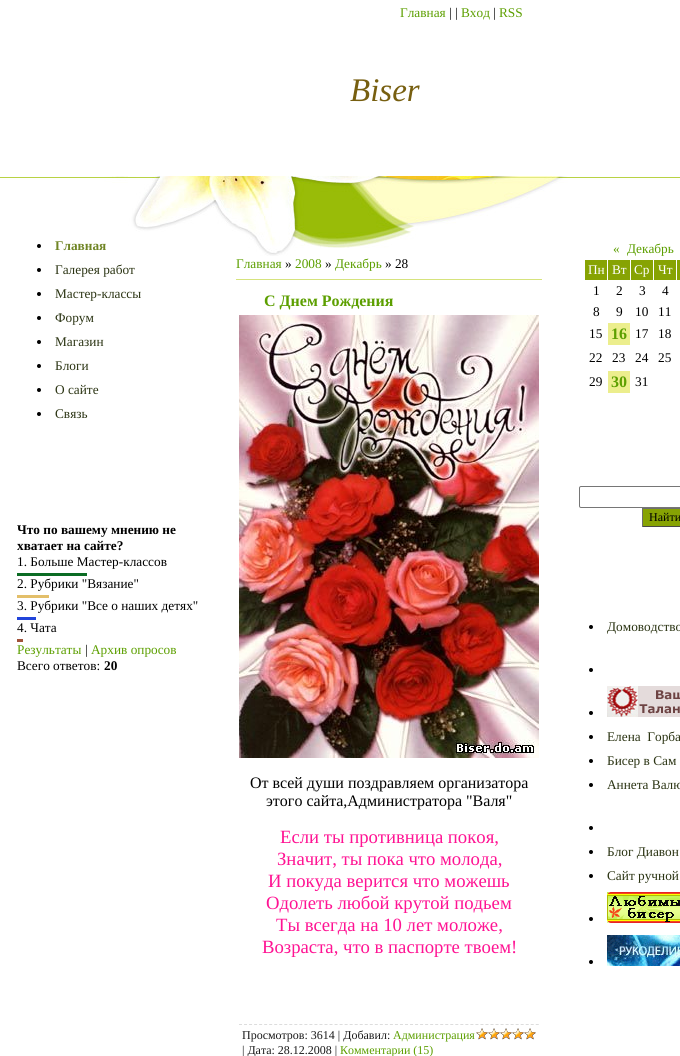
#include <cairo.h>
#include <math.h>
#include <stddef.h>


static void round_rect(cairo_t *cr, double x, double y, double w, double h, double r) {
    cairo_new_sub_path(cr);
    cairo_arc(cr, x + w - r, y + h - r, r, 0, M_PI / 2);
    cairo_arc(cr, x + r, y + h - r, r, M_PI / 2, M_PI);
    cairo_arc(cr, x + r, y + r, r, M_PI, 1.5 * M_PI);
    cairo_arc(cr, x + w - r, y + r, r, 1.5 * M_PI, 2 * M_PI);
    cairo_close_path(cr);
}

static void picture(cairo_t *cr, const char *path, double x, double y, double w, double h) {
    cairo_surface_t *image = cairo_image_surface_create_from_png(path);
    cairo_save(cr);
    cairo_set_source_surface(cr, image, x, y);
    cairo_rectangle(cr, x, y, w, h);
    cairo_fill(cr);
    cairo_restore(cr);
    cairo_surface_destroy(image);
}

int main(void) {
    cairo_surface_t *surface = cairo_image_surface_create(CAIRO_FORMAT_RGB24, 680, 1056);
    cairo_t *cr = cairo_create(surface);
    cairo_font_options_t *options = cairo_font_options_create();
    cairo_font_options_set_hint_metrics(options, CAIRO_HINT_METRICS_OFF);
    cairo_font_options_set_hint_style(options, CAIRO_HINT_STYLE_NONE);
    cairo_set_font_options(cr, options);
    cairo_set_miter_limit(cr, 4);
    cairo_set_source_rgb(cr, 1, 1, 1);
    cairo_paint(cr);
    cairo_select_font_face(cr, "Liberation Serif", CAIRO_FONT_SLANT_NORMAL, CAIRO_FONT_WEIGHT_NORMAL);
    cairo_set_font_size(cr, 13.3);
    cairo_set_source_rgb(cr, 0.361, 0.624, 0);
    cairo_move_to(cr, 400, 17);
    cairo_show_text(cr, "Главная");
    cairo_set_source_rgb(cr, 0, 0, 0);
    cairo_move_to(cr, 449, 17);
    cairo_show_text(cr, "| |");
    cairo_set_source_rgb(cr, 0.361, 0.624, 0);
    cairo_move_to(cr, 461, 17);
    cairo_show_text(cr, "Вход");
    cairo_set_source_rgb(cr, 0, 0, 0);
    cairo_move_to(cr, 493, 17);
    cairo_show_text(cr, "|");
    cairo_set_source_rgb(cr, 0.361, 0.624, 0);
    cairo_move_to(cr, 499, 17);
    cairo_show_text(cr, "RSS");
    cairo_select_font_face(cr, "Liberation Serif", CAIRO_FONT_SLANT_ITALIC, CAIRO_FONT_WEIGHT_NORMAL);
    cairo_set_font_size(cr, 33);
    cairo_set_source_rgb(cr, 0.467, 0.373, 0.063);
    cairo_move_to(cr, 350, 101);
    cairo_show_text(cr, "Biser");
    picture(cr, "img1.png", 0, 176, 680, 80);
    cairo_set_source_rgb(cr, 0, 0, 0);
    cairo_arc(cr, 39, 246, 2, 0, 2 * M_PI);
    cairo_fill(cr);
    cairo_select_font_face(cr, "Liberation Serif", CAIRO_FONT_SLANT_NORMAL, CAIRO_FONT_WEIGHT_BOLD);
    cairo_set_font_size(cr, 13.3);
    cairo_set_source_rgb(cr, 0.439, 0.522, 0.145);
    cairo_move_to(cr, 55, 250);
    cairo_show_text(cr, "Главная");
    cairo_set_source_rgb(cr, 0, 0, 0);
    cairo_new_path(cr);
    cairo_arc(cr, 39, 270, 2, 0, 2 * M_PI);
    cairo_fill(cr);
    cairo_select_font_face(cr, "Liberation Serif", CAIRO_FONT_SLANT_NORMAL, CAIRO_FONT_WEIGHT_NORMAL);
    cairo_set_source_rgb(cr, 0.169, 0.204, 0.078);
    cairo_move_to(cr, 55, 274);
    cairo_show_text(cr, "Галерея работ");
    cairo_set_source_rgb(cr, 0, 0, 0);
    cairo_new_path(cr);
    cairo_arc(cr, 39, 294, 2, 0, 2 * M_PI);
    cairo_fill(cr);
    cairo_set_source_rgb(cr, 0.169, 0.204, 0.078);
    cairo_move_to(cr, 55, 298);
    cairo_show_text(cr, "Мастер-классы");
    cairo_set_source_rgb(cr, 0, 0, 0);
    cairo_new_path(cr);
    cairo_arc(cr, 39, 318, 2, 0, 2 * M_PI);
    cairo_fill(cr);
    cairo_set_source_rgb(cr, 0.169, 0.204, 0.078);
    cairo_move_to(cr, 55, 322);
    cairo_show_text(cr, "Форум");
    cairo_set_source_rgb(cr, 0, 0, 0);
    cairo_new_path(cr);
    cairo_arc(cr, 39, 342, 2, 0, 2 * M_PI);
    cairo_fill(cr);
    cairo_set_source_rgb(cr, 0.169, 0.204, 0.078);
    cairo_move_to(cr, 55, 346);
    cairo_show_text(cr, "Магазин");
    cairo_set_source_rgb(cr, 0, 0, 0);
    cairo_new_path(cr);
    cairo_arc(cr, 39, 366, 2, 0, 2 * M_PI);
    cairo_fill(cr);
    cairo_set_source_rgb(cr, 0.169, 0.204, 0.078);
    cairo_move_to(cr, 55, 370);
    cairo_show_text(cr, "Блоги");
    cairo_set_source_rgb(cr, 0, 0, 0);
    cairo_new_path(cr);
    cairo_arc(cr, 39, 390, 2, 0, 2 * M_PI);
    cairo_fill(cr);
    cairo_set_source_rgb(cr, 0.169, 0.204, 0.078);
    cairo_move_to(cr, 55, 394);
    cairo_show_text(cr, "О сайте");
    cairo_set_source_rgb(cr, 0, 0, 0);
    cairo_new_path(cr);
    cairo_arc(cr, 39, 414, 2, 0, 2 * M_PI);
    cairo_fill(cr);
    cairo_set_source_rgb(cr, 0.169, 0.204, 0.078);
    cairo_move_to(cr, 55, 418);
    cairo_show_text(cr, "Связь");
    cairo_select_font_face(cr, "Liberation Serif", CAIRO_FONT_SLANT_NORMAL, CAIRO_FONT_WEIGHT_BOLD);
    cairo_set_source_rgb(cr, 0, 0, 0);
    cairo_move_to(cr, 17, 534);
    cairo_show_text(cr, "Что по вашему мнению не");
    cairo_move_to(cr, 17, 550);
    cairo_show_text(cr, "хватает на сайте?");
    cairo_select_font_face(cr, "Liberation Serif", CAIRO_FONT_SLANT_NORMAL, CAIRO_FONT_WEIGHT_NORMAL);
    cairo_move_to(cr, 17, 566);
    cairo_show_text(cr, "1. Больше Мастер-классов");
    cairo_set_source_rgb(cr, 0.043, 0.424, 0.141);
    cairo_rectangle(cr, 17, 573, 70, 3);
    cairo_fill(cr);
    cairo_set_source_rgb(cr, 0, 0, 0);
    cairo_move_to(cr, 17, 588);
    cairo_show_text(cr, "2. Рубрики \"Вязание\"");
    cairo_set_source_rgb(cr, 0.89, 0.749, 0.416);
    cairo_rectangle(cr, 17, 595, 32, 3);
    cairo_fill(cr);
    cairo_set_source_rgb(cr, 0, 0, 0);
    cairo_move_to(cr, 17, 610);
    cairo_show_text(cr, "3. Рубрики \"Все о наших детях\"");
    cairo_set_source_rgb(cr, 0.129, 0.267, 0.855);
    cairo_rectangle(cr, 17, 617, 19, 3);
    cairo_fill(cr);
    cairo_set_source_rgb(cr, 0, 0, 0);
    cairo_move_to(cr, 17, 632);
    cairo_show_text(cr, "4. Чата");
    cairo_set_source_rgb(cr, 0.631, 0.322, 0.227);
    cairo_rectangle(cr, 17, 639, 6, 3);
    cairo_fill(cr);
    cairo_set_source_rgb(cr, 0.361, 0.624, 0);
    cairo_move_to(cr, 17, 654);
    cairo_show_text(cr, "Результаты");
    cairo_set_source_rgb(cr, 0, 0, 0);
    cairo_move_to(cr, 85, 654);
    cairo_show_text(cr, "|");
    cairo_set_source_rgb(cr, 0.361, 0.624, 0);
    cairo_move_to(cr, 91, 654);
    cairo_show_text(cr, "Архив опросов");
    cairo_set_source_rgb(cr, 0, 0, 0);
    cairo_move_to(cr, 17, 670);
    cairo_show_text(cr, "Всего ответов:");
    cairo_select_font_face(cr, "Liberation Serif", CAIRO_FONT_SLANT_NORMAL, CAIRO_FONT_WEIGHT_BOLD);
    cairo_move_to(cr, 104, 670);
    cairo_show_text(cr, "20");
    cairo_select_font_face(cr, "Liberation Serif", CAIRO_FONT_SLANT_NORMAL, CAIRO_FONT_WEIGHT_NORMAL);
    cairo_set_source_rgb(cr, 0.361, 0.624, 0);
    cairo_move_to(cr, 236, 268);
    cairo_show_text(cr, "Главная");
    cairo_set_source_rgb(cr, 0, 0, 0);
    cairo_move_to(cr, 285, 268);
    cairo_show_text(cr, "»");
    cairo_set_source_rgb(cr, 0.361, 0.624, 0);
    cairo_move_to(cr, 295, 268);
    cairo_show_text(cr, "2008");
    cairo_set_source_rgb(cr, 0, 0, 0);
    cairo_move_to(cr, 325, 268);
    cairo_show_text(cr, "»");
    cairo_set_source_rgb(cr, 0.361, 0.624, 0);
    cairo_move_to(cr, 335, 268);
    cairo_show_text(cr, "Декабрь");
    cairo_set_source_rgb(cr, 0, 0, 0);
    cairo_move_to(cr, 385, 268);
    cairo_show_text(cr, "» 28");
    cairo_set_source_rgb(cr, 0.839, 0.89, 0.49);
    cairo_rectangle(cr, 236, 279, 306, 1);
    cairo_fill(cr);
    cairo_select_font_face(cr, "Liberation Serif", CAIRO_FONT_SLANT_NORMAL, CAIRO_FONT_WEIGHT_BOLD);
    cairo_set_font_size(cr, 16);
    cairo_set_source_rgb(cr, 0.361, 0.624, 0);
    cairo_move_to(cr, 264, 306);
    cairo_show_text(cr, "С Днем Рождения");
    picture(cr, "img2.png", 239, 315, 300, 443);
    cairo_select_font_face(cr, "Liberation Serif", CAIRO_FONT_SLANT_NORMAL, CAIRO_FONT_WEIGHT_NORMAL);
    cairo_set_source_rgb(cr, 0, 0, 0);
    cairo_move_to(cr, 250, 788);
    cairo_show_text(cr, "От всей души поздравляем организатора");
    cairo_move_to(cr, 266, 806);
    cairo_show_text(cr, "этого сайта,Администратора \"Валя\"");
    cairo_set_font_size(cr, 18.7);
    cairo_set_source_rgb(cr, 1, 0.078, 0.576);
    cairo_move_to(cr, 280, 843);
    cairo_show_text(cr, "Если ты противница покоя,");
    cairo_move_to(cr, 277, 865);
    cairo_show_text(cr, "Значит, ты пока что молода,");
    cairo_move_to(cr, 268, 887);
    cairo_show_text(cr, "И покуда верится что можешь");
    cairo_move_to(cr, 266, 909);
    cairo_show_text(cr, "Одолеть любой крутой подьем");
    cairo_move_to(cr, 276, 931);
    cairo_show_text(cr, "Ты всегда на 10 лет моложе,");
    cairo_move_to(cr, 262, 953);
    cairo_show_text(cr, "Возраста, что в паспорте твоем!");
    cairo_new_path(cr);
    cairo_move_to(cr, 239, 1024.5);
    cairo_line_to(cr, 539, 1024.5);
    cairo_set_source_rgb(cr, 0.867, 0.867, 0.867);
    cairo_set_line_width(cr, 1);
    cairo_set_dash(cr, (double[]){3, 2.03}, 2, 0);
    cairo_stroke(cr);
    cairo_set_font_size(cr, 12);
    cairo_set_source_rgb(cr, 0.102, 0.102, 0.102);
    cairo_move_to(cr, 242, 1039);
    cairo_show_text(cr, "Просмотров: 3614 | Добавил:");
    cairo_set_source_rgb(cr, 0.361, 0.624, 0);
    cairo_move_to(cr, 393, 1039);
    cairo_show_text(cr, "Администрация");
    picture(cr, "img3.png", 476, 1028, 60, 12);
    picture(cr, "img4.png", 476, 1028, 60, 12);
    cairo_set_source_rgb(cr, 0.102, 0.102, 0.102);
    cairo_move_to(cr, 242, 1054);
    cairo_show_text(cr, "| Дата: 28.12.2008 |");
    cairo_set_source_rgb(cr, 0.361, 0.624, 0);
    cairo_move_to(cr, 340, 1054);
    cairo_show_text(cr, "Комментарии (15)");
    cairo_set_font_size(cr, 13.3);
    cairo_move_to(cr, 613, 253);
    cairo_show_text(cr, "«");
    cairo_move_to(cr, 627, 253);
    cairo_show_text(cr, "Декабрь");
    cairo_set_source_rgb(cr, 0.529, 0.639, 0.012);
    cairo_rectangle(cr, 585, 260, 22, 20);
    cairo_fill(cr);
    cairo_set_source_rgb(cr, 1, 1, 1);
    cairo_move_to(cr, 588, 274);
    cairo_show_text(cr, "Пн");
    cairo_set_source_rgb(cr, 0.529, 0.639, 0.012);
    cairo_rectangle(cr, 608, 260, 22, 20);
    cairo_fill(cr);
    cairo_set_source_rgb(cr, 1, 1, 1);
    cairo_move_to(cr, 612, 274);
    cairo_show_text(cr, "Вт");
    cairo_set_source_rgb(cr, 0.529, 0.639, 0.012);
    cairo_rectangle(cr, 631, 260, 22, 20);
    cairo_fill(cr);
    cairo_set_source_rgb(cr, 1, 1, 1);
    cairo_move_to(cr, 634, 274);
    cairo_show_text(cr, "Ср");
    cairo_set_source_rgb(cr, 0.529, 0.639, 0.012);
    cairo_rectangle(cr, 654, 260, 22, 20);
    cairo_fill(cr);
    cairo_set_source_rgb(cr, 1, 1, 1);
    cairo_move_to(cr, 658, 274);
    cairo_show_text(cr, "Чт");
    cairo_set_source_rgb(cr, 0.529, 0.639, 0.012);
    cairo_rectangle(cr, 677, 260, 3, 20);
    cairo_fill(cr);
    cairo_set_source_rgb(cr, 0, 0, 0);
    cairo_move_to(cr, 593, 295);
    cairo_show_text(cr, "1");
    cairo_move_to(cr, 616, 295);
    cairo_show_text(cr, "2");
    cairo_move_to(cr, 639, 295);
    cairo_show_text(cr, "3");
    cairo_move_to(cr, 662, 295);
    cairo_show_text(cr, "4");
    cairo_move_to(cr, 593, 316);
    cairo_show_text(cr, "8");
    cairo_move_to(cr, 616, 316);
    cairo_show_text(cr, "9");
    cairo_move_to(cr, 635, 316);
    cairo_show_text(cr, "10");
    cairo_move_to(cr, 658, 316);
    cairo_show_text(cr, "11");
    cairo_move_to(cr, 589, 338);
    cairo_show_text(cr, "15");
    cairo_set_source_rgb(cr, 0.922, 0.933, 0.553);
    cairo_rectangle(cr, 608, 323, 22, 22);
    cairo_fill(cr);
    cairo_select_font_face(cr, "Liberation Serif", CAIRO_FONT_SLANT_NORMAL, CAIRO_FONT_WEIGHT_BOLD);
    cairo_set_font_size(cr, 16);
    cairo_set_source_rgb(cr, 0.361, 0.624, 0);
    cairo_move_to(cr, 611, 339);
    cairo_show_text(cr, "16");
    cairo_select_font_face(cr, "Liberation Serif", CAIRO_FONT_SLANT_NORMAL, CAIRO_FONT_WEIGHT_NORMAL);
    cairo_set_font_size(cr, 13.3);
    cairo_set_source_rgb(cr, 0, 0, 0);
    cairo_move_to(cr, 635, 338);
    cairo_show_text(cr, "17");
    cairo_move_to(cr, 658, 338);
    cairo_show_text(cr, "18");
    cairo_move_to(cr, 589, 362);
    cairo_show_text(cr, "22");
    cairo_move_to(cr, 612, 362);
    cairo_show_text(cr, "23");
    cairo_move_to(cr, 635, 362);
    cairo_show_text(cr, "24");
    cairo_move_to(cr, 658, 362);
    cairo_show_text(cr, "25");
    cairo_move_to(cr, 589, 386);
    cairo_show_text(cr, "29");
    cairo_set_source_rgb(cr, 0.922, 0.933, 0.553);
    cairo_rectangle(cr, 608, 371, 22, 22);
    cairo_fill(cr);
    cairo_select_font_face(cr, "Liberation Serif", CAIRO_FONT_SLANT_NORMAL, CAIRO_FONT_WEIGHT_BOLD);
    cairo_set_font_size(cr, 16);
    cairo_set_source_rgb(cr, 0.361, 0.624, 0);
    cairo_move_to(cr, 611, 387);
    cairo_show_text(cr, "30");
    cairo_select_font_face(cr, "Liberation Serif", CAIRO_FONT_SLANT_NORMAL, CAIRO_FONT_WEIGHT_NORMAL);
    cairo_set_font_size(cr, 13.3);
    cairo_set_source_rgb(cr, 0, 0, 0);
    cairo_move_to(cr, 635, 386);
    cairo_show_text(cr, "31");
    round_rect(cr, 579.5, 486.5, 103, 21, 1.5);
    cairo_set_source_rgb(cr, 0.463, 0.463, 0.463);
    cairo_set_dash(cr, NULL, 0, 0);
    cairo_stroke(cr);
    cairo_set_source_rgb(cr, 0.529, 0.639, 0.012);
    cairo_rectangle(cr, 643, 509, 37, 17);
    cairo_fill(cr);
    cairo_set_source_rgb(cr, 0.431, 0.431, 0.431);
    cairo_rectangle(cr, 642, 508, 38, 1);
    cairo_fill(cr);
    cairo_set_source_rgb(cr, 0.286, 0.286, 0.286);
    cairo_rectangle(cr, 642, 526, 38, 1);
    cairo_fill(cr);
    cairo_set_source_rgb(cr, 0.431, 0.431, 0.431);
    cairo_rectangle(cr, 642, 508, 1, 19);
    cairo_fill(cr);
    cairo_set_font_size(cr, 12);
    cairo_set_source_rgb(cr, 0, 0, 0);
    cairo_move_to(cr, 649, 521);
    cairo_show_text(cr, "Найти");
    cairo_new_path(cr);
    cairo_arc(cr, 591, 627, 2, 0, 2 * M_PI);
    cairo_fill(cr);
    cairo_set_font_size(cr, 13.3);
    cairo_set_source_rgb(cr, 0.169, 0.204, 0.078);
    cairo_move_to(cr, 607, 631);
    cairo_show_text(cr, "Домоводство");
    cairo_set_source_rgb(cr, 0, 0, 0);
    cairo_new_path(cr);
    cairo_arc(cr, 591, 670, 2, 0, 2 * M_PI);
    cairo_fill(cr);
    cairo_arc(cr, 591, 713, 2, 0, 2 * M_PI);
    cairo_fill(cr);
    picture(cr, "img5.png", 607, 686, 73, 31);
    cairo_arc(cr, 591, 737, 2, 0, 2 * M_PI);
    cairo_fill(cr);
    cairo_set_source_rgb(cr, 0.169, 0.204, 0.078);
    cairo_move_to(cr, 607, 741);
    cairo_show_text(cr, "Елена  Горба");
    cairo_set_source_rgb(cr, 0, 0, 0);
    cairo_new_path(cr);
    cairo_arc(cr, 591, 761, 2, 0, 2 * M_PI);
    cairo_fill(cr);
    cairo_set_source_rgb(cr, 0.169, 0.204, 0.078);
    cairo_move_to(cr, 607, 765);
    cairo_show_text(cr, "Бисер в Сам");
    cairo_set_source_rgb(cr, 0, 0, 0);
    cairo_new_path(cr);
    cairo_arc(cr, 591, 785, 2, 0, 2 * M_PI);
    cairo_fill(cr);
    cairo_set_source_rgb(cr, 0.169, 0.204, 0.078);
    cairo_move_to(cr, 607, 789);
    cairo_show_text(cr, "Аннета Валю");
    cairo_set_source_rgb(cr, 0, 0, 0);
    cairo_new_path(cr);
    cairo_arc(cr, 591, 828, 2, 0, 2 * M_PI);
    cairo_fill(cr);
    cairo_arc(cr, 591, 852, 2, 0, 2 * M_PI);
    cairo_fill(cr);
    cairo_set_source_rgb(cr, 0.169, 0.204, 0.078);
    cairo_move_to(cr, 607, 856);
    cairo_show_text(cr, "Блог Диавон");
    cairo_set_source_rgb(cr, 0, 0, 0);
    cairo_new_path(cr);
    cairo_arc(cr, 591, 876, 2, 0, 2 * M_PI);
    cairo_fill(cr);
    cairo_set_source_rgb(cr, 0.169, 0.204, 0.078);
    cairo_move_to(cr, 607, 880);
    cairo_show_text(cr, "Сайт ручной");
    cairo_set_source_rgb(cr, 0, 0, 0);
    cairo_new_path(cr);
    cairo_arc(cr, 591, 919, 2, 0, 2 * M_PI);
    cairo_fill(cr);
    picture(cr, "img6.png", 607, 892, 73, 31);
    cairo_arc(cr, 591, 962, 2, 0, 2 * M_PI);
    cairo_fill(cr);
    picture(cr, "img7.png", 607, 935, 73, 31);
    cairo_surface_write_to_png(surface, "page.png");
    cairo_font_options_destroy(options);
    cairo_destroy(cr);
    cairo_surface_destroy(surface);
    return 0;
}
